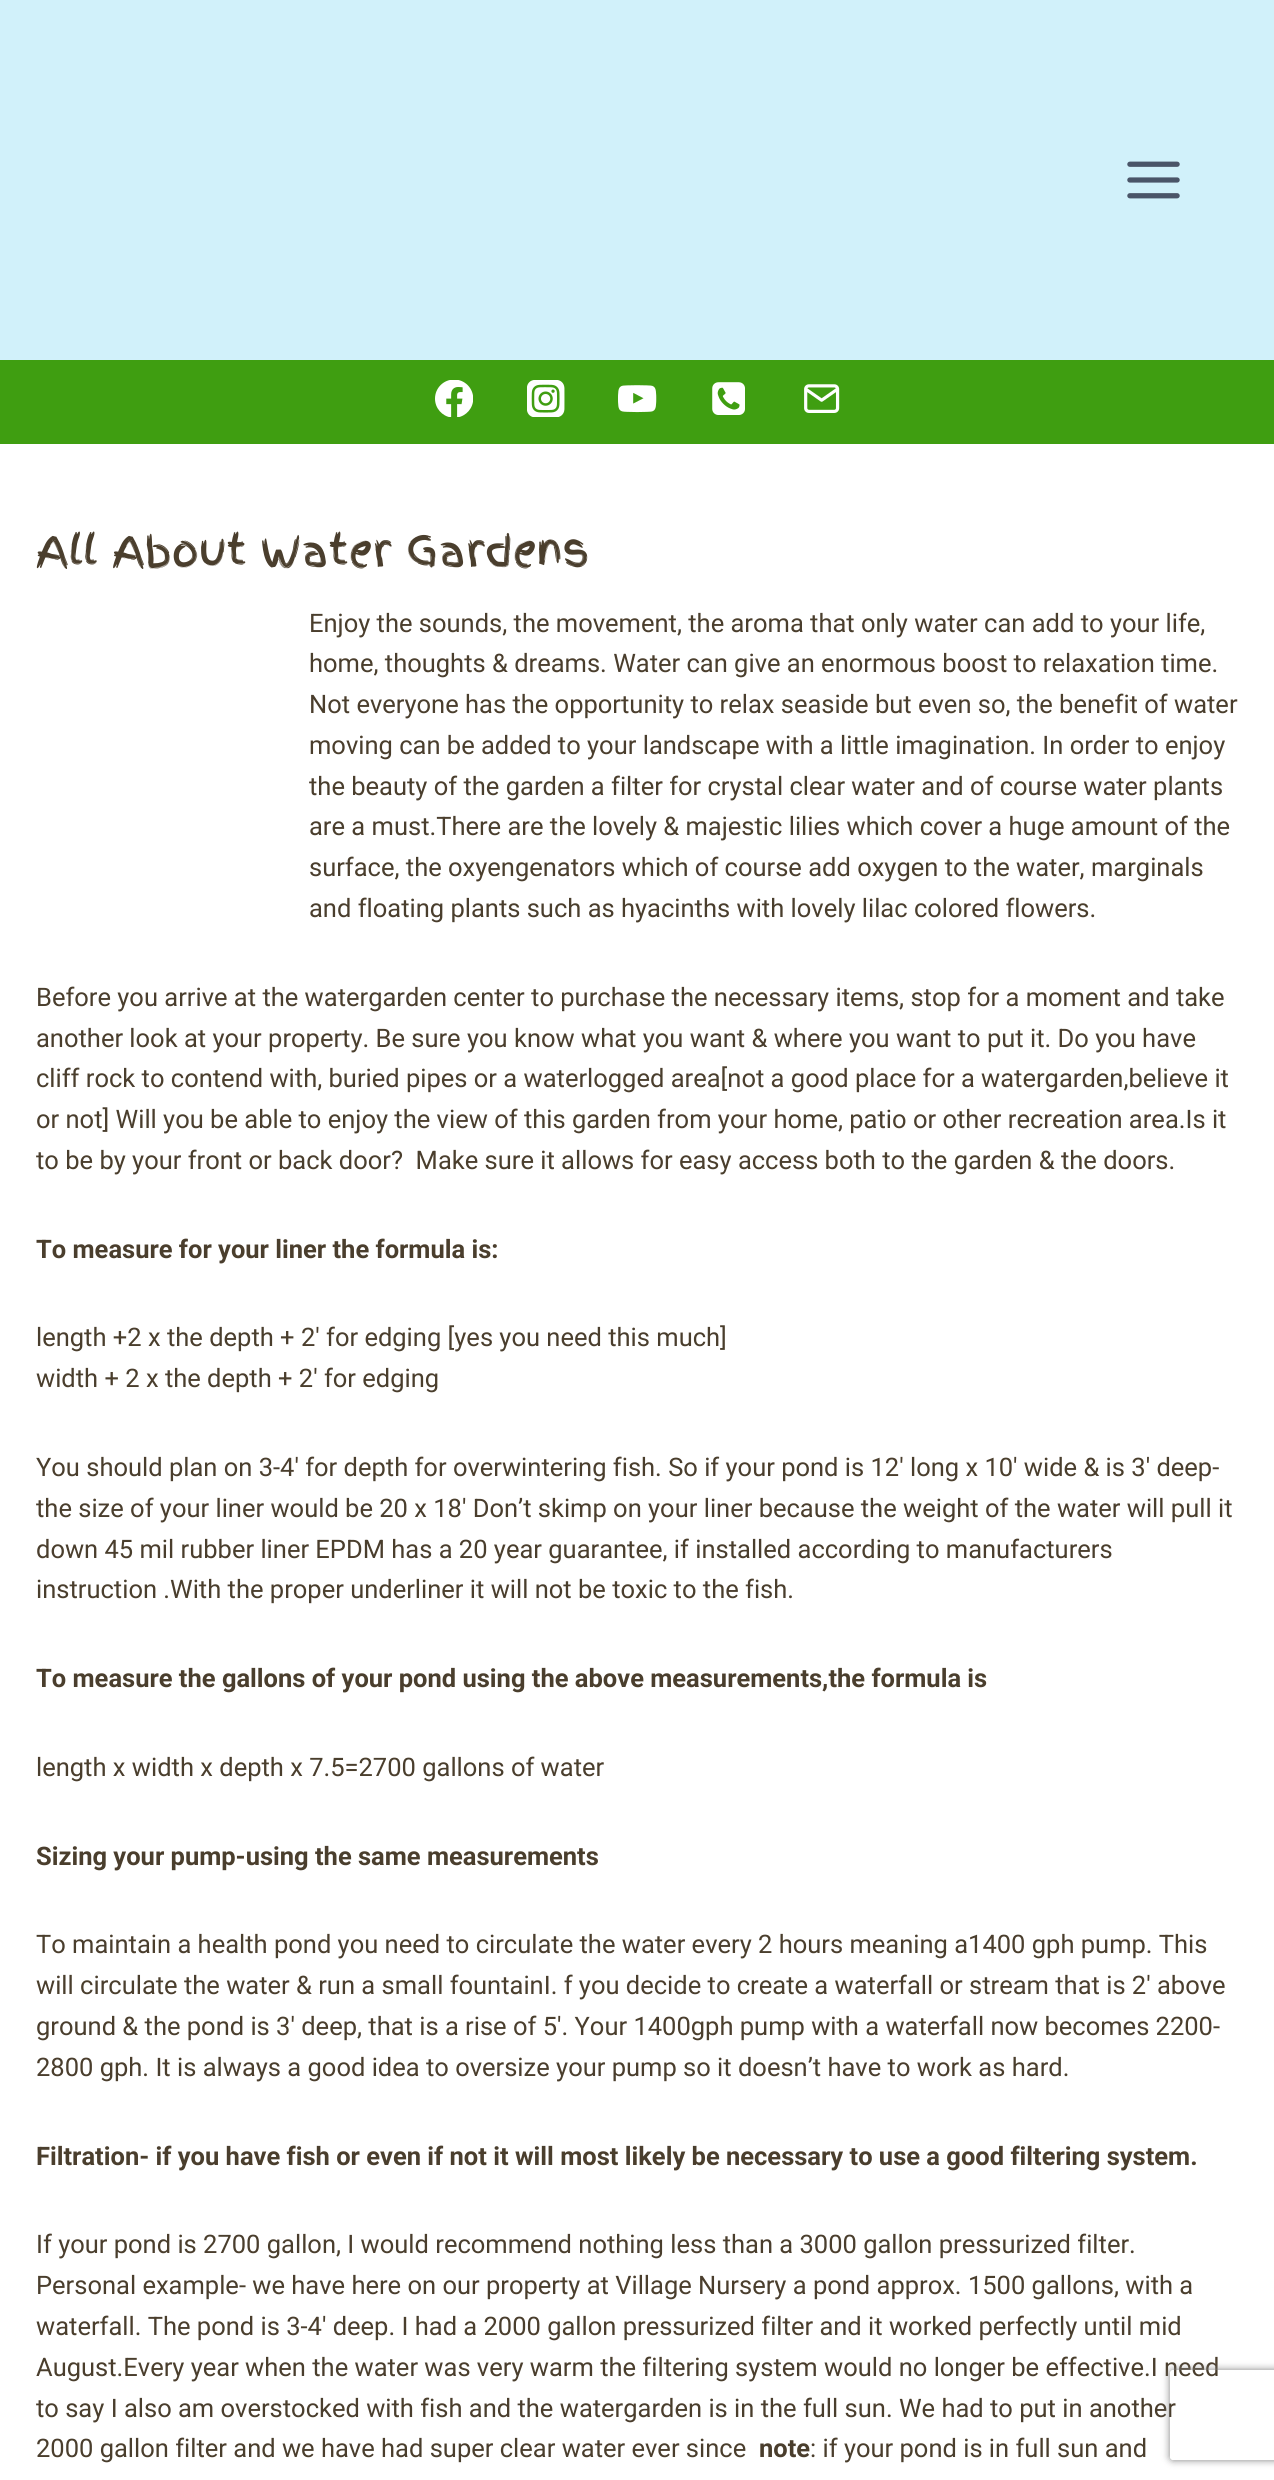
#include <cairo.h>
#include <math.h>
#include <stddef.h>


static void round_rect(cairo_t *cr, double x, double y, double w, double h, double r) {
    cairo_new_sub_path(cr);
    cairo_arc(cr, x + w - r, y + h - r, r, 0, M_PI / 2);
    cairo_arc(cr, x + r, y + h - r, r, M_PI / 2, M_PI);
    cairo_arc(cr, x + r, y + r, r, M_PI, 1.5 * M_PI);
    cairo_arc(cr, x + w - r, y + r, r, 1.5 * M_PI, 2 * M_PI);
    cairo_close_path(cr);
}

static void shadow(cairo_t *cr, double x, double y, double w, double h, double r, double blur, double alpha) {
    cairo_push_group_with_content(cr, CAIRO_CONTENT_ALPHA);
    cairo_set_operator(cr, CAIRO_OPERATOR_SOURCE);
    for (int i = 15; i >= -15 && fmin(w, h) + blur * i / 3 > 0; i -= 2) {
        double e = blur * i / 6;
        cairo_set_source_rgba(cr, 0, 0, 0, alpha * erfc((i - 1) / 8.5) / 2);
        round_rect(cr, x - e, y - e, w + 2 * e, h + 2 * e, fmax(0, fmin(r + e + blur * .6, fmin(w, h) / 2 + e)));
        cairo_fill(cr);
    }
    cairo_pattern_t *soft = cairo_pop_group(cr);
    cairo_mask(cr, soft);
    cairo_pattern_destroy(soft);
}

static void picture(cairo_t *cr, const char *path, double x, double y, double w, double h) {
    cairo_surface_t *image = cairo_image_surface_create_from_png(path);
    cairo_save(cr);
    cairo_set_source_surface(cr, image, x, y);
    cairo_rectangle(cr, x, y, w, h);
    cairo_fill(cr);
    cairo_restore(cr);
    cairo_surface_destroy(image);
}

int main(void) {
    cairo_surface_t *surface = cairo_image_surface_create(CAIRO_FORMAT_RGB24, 1274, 2480);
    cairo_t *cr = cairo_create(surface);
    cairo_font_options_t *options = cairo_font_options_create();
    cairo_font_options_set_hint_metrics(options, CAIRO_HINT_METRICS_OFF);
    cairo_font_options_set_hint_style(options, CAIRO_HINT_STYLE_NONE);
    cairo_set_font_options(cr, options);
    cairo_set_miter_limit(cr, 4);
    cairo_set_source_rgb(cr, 1, 1, 1);
    cairo_paint(cr);
    cairo_set_source_rgb(cr, 0.82, 0.945, 0.98);
    cairo_rectangle(cr, 0, 0, 1274, 360);
    cairo_fill(cr);
    picture(cr, "img1.png", 1127, 161, 53, 38);
    cairo_set_source_rgb(cr, 0.247, 0.62, 0.067);
    cairo_rectangle(cr, 0, 360, 1274, 84);
    cairo_fill(cr);
    picture(cr, "img2.png", 435, 380, 38, 37);
    picture(cr, "img3.png", 527, 380, 38, 37);
    picture(cr, "img4.png", 618, 385, 39, 28);
    picture(cr, "img5.png", 712, 382, 33, 33);
    picture(cr, "img6.png", 804, 384, 36, 29);
    cairo_select_font_face(cr, "Finger Paint", CAIRO_FONT_SLANT_NORMAL, CAIRO_FONT_WEIGHT_NORMAL);
    cairo_set_font_size(cr, 42);
    cairo_set_source_rgb(cr, 0.29, 0.243, 0.176);
    cairo_move_to(cr, 36, 566);
    cairo_show_text(cr, "All About Water Gardens");
    cairo_select_font_face(cr, "Roboto", CAIRO_FONT_SLANT_NORMAL, CAIRO_FONT_WEIGHT_NORMAL);
    cairo_set_font_size(cr, 25.5);
    cairo_move_to(cr, 309, 632);
    cairo_show_text(cr, "Enjoy the sounds, the movement, the aroma that only water can add to your life,");
    cairo_move_to(cr, 309, 672);
    cairo_show_text(cr, "home, thoughts & dreams. Water can give an enormous boost to relaxation time.");
    cairo_move_to(cr, 309, 713);
    cairo_show_text(cr, "Not everyone has the opportunity to relax seaside but even so, the benefit of water");
    cairo_move_to(cr, 309, 754);
    cairo_show_text(cr, "moving can be added to your landscape with a little imagination. In order to enjoy");
    cairo_move_to(cr, 309, 795);
    cairo_show_text(cr, "the beauty of the garden a filter for crystal clear water and of course water plants");
    cairo_move_to(cr, 309, 835);
    cairo_show_text(cr, "are a must.There are the lovely & majestic lilies which cover a huge amount of the");
    cairo_move_to(cr, 309, 876);
    cairo_show_text(cr, "surface, the oxyengenators which of course add oxygen to the water, marginals");
    cairo_move_to(cr, 309, 917);
    cairo_show_text(cr, "and floating plants such as hyacinths with lovely lilac colored flowers.");
    cairo_move_to(cr, 36, 1006);
    cairo_show_text(cr, "Before you arrive at the watergarden center to purchase the necessary items, stop for a moment and take");
    cairo_move_to(cr, 36, 1047);
    cairo_show_text(cr, "another look at your property. Be sure you know what you want & where you want to put it. Do you have");
    cairo_move_to(cr, 36, 1087);
    cairo_show_text(cr, "cliff rock to contend with, buried pipes or a waterlogged area[not a good place for a watergarden,believe it");
    cairo_move_to(cr, 36, 1128);
    cairo_show_text(cr, "or not] Will you be able to enjoy the view of this garden from your home, patio or other recreation area.Is it");
    cairo_move_to(cr, 36, 1169);
    cairo_show_text(cr, "to be by your front or back door?  Make sure it allows for easy access both to the garden & the doors.");
    cairo_select_font_face(cr, "Roboto", CAIRO_FONT_SLANT_NORMAL, CAIRO_FONT_WEIGHT_BOLD);
    cairo_move_to(cr, 36, 1258);
    cairo_show_text(cr, "To measure for your liner the formula is:");
    cairo_select_font_face(cr, "Roboto", CAIRO_FONT_SLANT_NORMAL, CAIRO_FONT_WEIGHT_NORMAL);
    cairo_move_to(cr, 36, 1346);
    cairo_show_text(cr, "length +2 x the depth + 2′ for edging [yes you need this much]");
    cairo_move_to(cr, 36, 1387);
    cairo_show_text(cr, "width + 2 x the depth + 2′ for edging");
    cairo_move_to(cr, 36, 1476);
    cairo_show_text(cr, "You should plan on 3-4′ for depth for overwintering fish. So if your pond is 12′ long x 10′ wide & is 3′ deep-");
    cairo_move_to(cr, 36, 1517);
    cairo_show_text(cr, "the size of your liner would be 20 x 18′ Don’t skimp on your liner because the weight of the water will pull it");
    cairo_move_to(cr, 36, 1558);
    cairo_show_text(cr, "down 45 mil rubber liner EPDM has a 20 year guarantee, if installed according to manufacturers");
    cairo_move_to(cr, 36, 1598);
    cairo_show_text(cr, "instruction .With the proper underliner it will not be toxic to the fish.");
    cairo_select_font_face(cr, "Roboto", CAIRO_FONT_SLANT_NORMAL, CAIRO_FONT_WEIGHT_BOLD);
    cairo_move_to(cr, 36, 1687);
    cairo_show_text(cr, "To measure the gallons of your pond using the above measurements,the formula is");
    cairo_select_font_face(cr, "Roboto", CAIRO_FONT_SLANT_NORMAL, CAIRO_FONT_WEIGHT_NORMAL);
    cairo_move_to(cr, 36, 1776);
    cairo_show_text(cr, "length x width x depth x 7.5=2700 gallons of water");
    cairo_select_font_face(cr, "Roboto", CAIRO_FONT_SLANT_NORMAL, CAIRO_FONT_WEIGHT_BOLD);
    cairo_move_to(cr, 36, 1865);
    cairo_show_text(cr, "Sizing your pump-using the same measurements");
    cairo_select_font_face(cr, "Roboto", CAIRO_FONT_SLANT_NORMAL, CAIRO_FONT_WEIGHT_NORMAL);
    cairo_move_to(cr, 36, 1953);
    cairo_show_text(cr, "To maintain a health pond you need to circulate the water every 2 hours meaning a1400 gph pump. This");
    cairo_move_to(cr, 36, 1994);
    cairo_show_text(cr, "will circulate the water & run a small fountainI. f you decide to create a waterfall or stream that is 2′ above");
    cairo_move_to(cr, 36, 2035);
    cairo_show_text(cr, "ground & the pond is 3′ deep, that is a rise of 5′. Your 1400gph pump with a waterfall now becomes 2200-");
    cairo_move_to(cr, 36, 2076);
    cairo_show_text(cr, "2800 gph. It is always a good idea to oversize your pump so it doesn’t have to work as hard.");
    cairo_select_font_face(cr, "Roboto", CAIRO_FONT_SLANT_NORMAL, CAIRO_FONT_WEIGHT_BOLD);
    cairo_move_to(cr, 36, 2165);
    cairo_show_text(cr, "Filtration- if you have fish or even if not it will most likely be necessary to use a good filtering system.");
    cairo_select_font_face(cr, "Roboto", CAIRO_FONT_SLANT_NORMAL, CAIRO_FONT_WEIGHT_NORMAL);
    cairo_move_to(cr, 36, 2253);
    cairo_show_text(cr, "If your pond is 2700 gallon, I would recommend nothing less than a 3000 gallon pressurized filter.");
    cairo_move_to(cr, 36, 2294);
    cairo_show_text(cr, "Personal example- we have here on our property at Village Nursery a pond approx. 1500 gallons, with a");
    cairo_move_to(cr, 36, 2335);
    cairo_show_text(cr, "waterfall. The pond is 3-4′ deep. I had a 2000 gallon pressurized filter and it worked perfectly until mid");
    cairo_move_to(cr, 36, 2376);
    cairo_show_text(cr, "August.Every year when the water was very warm the filtering system would no longer be effective.I need");
    cairo_move_to(cr, 36, 2417);
    cairo_show_text(cr, "to say I also am overstocked with fish and the watergarden is in the full sun. We had to put in another");
    cairo_move_to(cr, 36, 2457);
    cairo_show_text(cr, "2000 gallon filter and we have had super clear water ever since");
    cairo_select_font_face(cr, "Roboto", CAIRO_FONT_SLANT_NORMAL, CAIRO_FONT_WEIGHT_BOLD);
    cairo_move_to(cr, 759, 2457);
    cairo_show_text(cr, "note");
    cairo_select_font_face(cr, "Roboto", CAIRO_FONT_SLANT_NORMAL, CAIRO_FONT_WEIGHT_NORMAL);
    cairo_move_to(cr, 810, 2457);
    cairo_show_text(cr, ": if your pond is in full sun and");
    cairo_save(cr);
    cairo_set_fill_rule(cr, CAIRO_FILL_RULE_EVEN_ODD);
    cairo_new_path(cr);
    cairo_move_to(cr, 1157, 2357);
    cairo_line_to(cr, 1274, 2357);
    cairo_line_to(cr, 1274, 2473);
    cairo_line_to(cr, 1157, 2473);
    cairo_close_path(cr);
    cairo_move_to(cr, 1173, 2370);
    cairo_line_to(cr, 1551, 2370);
    cairo_curve_to(cr, 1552.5, 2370, 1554, 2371.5, 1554, 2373);
    cairo_line_to(cr, 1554, 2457);
    cairo_curve_to(cr, 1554, 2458.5, 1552.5, 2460, 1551, 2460);
    cairo_line_to(cr, 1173, 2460);
    cairo_curve_to(cr, 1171.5, 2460, 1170, 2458.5, 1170, 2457);
    cairo_line_to(cr, 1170, 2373);
    cairo_curve_to(cr, 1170, 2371.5, 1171.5, 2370, 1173, 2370);
    cairo_close_path(cr);
    cairo_clip(cr);
    cairo_set_source_rgb(cr, 0.502, 0.502, 0.502);
    shadow(cr, 1170, 2370, 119, 90, 3, 4, 1);
    cairo_restore(cr);
    cairo_surface_write_to_png(surface, "page.png");
    cairo_font_options_destroy(options);
    cairo_destroy(cr);
    cairo_surface_destroy(surface);
    return 0;
}
